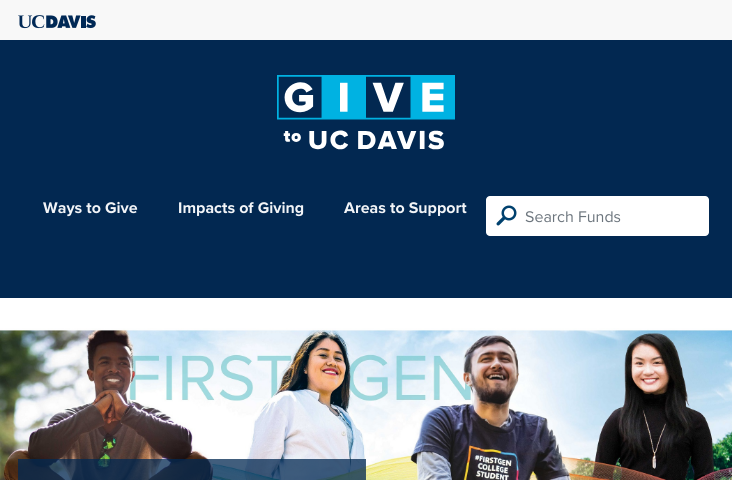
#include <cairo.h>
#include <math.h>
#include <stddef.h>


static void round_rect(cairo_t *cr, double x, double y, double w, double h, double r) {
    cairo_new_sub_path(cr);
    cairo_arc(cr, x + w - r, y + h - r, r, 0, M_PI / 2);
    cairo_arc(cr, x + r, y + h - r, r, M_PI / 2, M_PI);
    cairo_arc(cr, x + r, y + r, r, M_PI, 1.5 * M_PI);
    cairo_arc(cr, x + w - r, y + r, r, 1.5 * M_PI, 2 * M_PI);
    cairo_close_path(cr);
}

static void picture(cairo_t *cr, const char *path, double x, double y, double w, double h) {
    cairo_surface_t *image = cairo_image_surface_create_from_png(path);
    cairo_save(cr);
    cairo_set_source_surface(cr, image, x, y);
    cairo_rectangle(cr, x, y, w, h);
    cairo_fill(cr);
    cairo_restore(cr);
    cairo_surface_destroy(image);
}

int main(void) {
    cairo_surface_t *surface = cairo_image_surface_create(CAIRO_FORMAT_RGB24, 732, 480);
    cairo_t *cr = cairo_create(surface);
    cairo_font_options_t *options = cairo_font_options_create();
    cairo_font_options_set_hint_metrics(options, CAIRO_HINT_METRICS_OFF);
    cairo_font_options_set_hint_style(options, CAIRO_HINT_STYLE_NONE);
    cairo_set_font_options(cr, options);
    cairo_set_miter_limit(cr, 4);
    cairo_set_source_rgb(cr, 0.969, 0.969, 0.969);
    cairo_paint(cr);
    picture(cr, "img1.png", 18, 15, 78, 14);
    cairo_set_source_rgb(cr, 0.008, 0.157, 0.318);
    cairo_rectangle(cr, 0, 40, 732, 258);
    cairo_fill(cr);
    picture(cr, "img2.png", 277, 75, 178, 75);
    cairo_select_font_face(cr, "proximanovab", CAIRO_FONT_SLANT_NORMAL, CAIRO_FONT_WEIGHT_BOLD);
    cairo_set_font_size(cr, 16);
    cairo_set_source_rgb(cr, 0.949, 0.957, 0.965);
    cairo_move_to(cr, 43, 213);
    cairo_show_text(cr, "Ways to Give");
    cairo_move_to(cr, 178, 213);
    cairo_show_text(cr, "Impacts of Giving");
    cairo_move_to(cr, 344, 213);
    cairo_show_text(cr, "Areas to Support");
    cairo_set_source_rgb(cr, 1, 1, 1);
    round_rect(cr, 486, 196, 223, 40, 4);
    cairo_fill(cr);
    picture(cr, "img3.png", 496, 205, 21, 21);
    cairo_select_font_face(cr, "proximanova", CAIRO_FONT_SLANT_NORMAL, CAIRO_FONT_WEIGHT_NORMAL);
    cairo_set_source_rgb(cr, 0.424, 0.459, 0.49);
    cairo_move_to(cr, 525, 222);
    cairo_show_text(cr, "Search Funds");
    picture(cr, "img4.png", 0, 298, 732, 182);
    cairo_set_source_rgba(cr, 0.008, 0.157, 0.318, 0.75);
    cairo_rectangle(cr, 18, 459, 348, 21);
    cairo_fill(cr);
    cairo_surface_write_to_png(surface, "page.png");
    cairo_font_options_destroy(options);
    cairo_destroy(cr);
    cairo_surface_destroy(surface);
    return 0;
}
